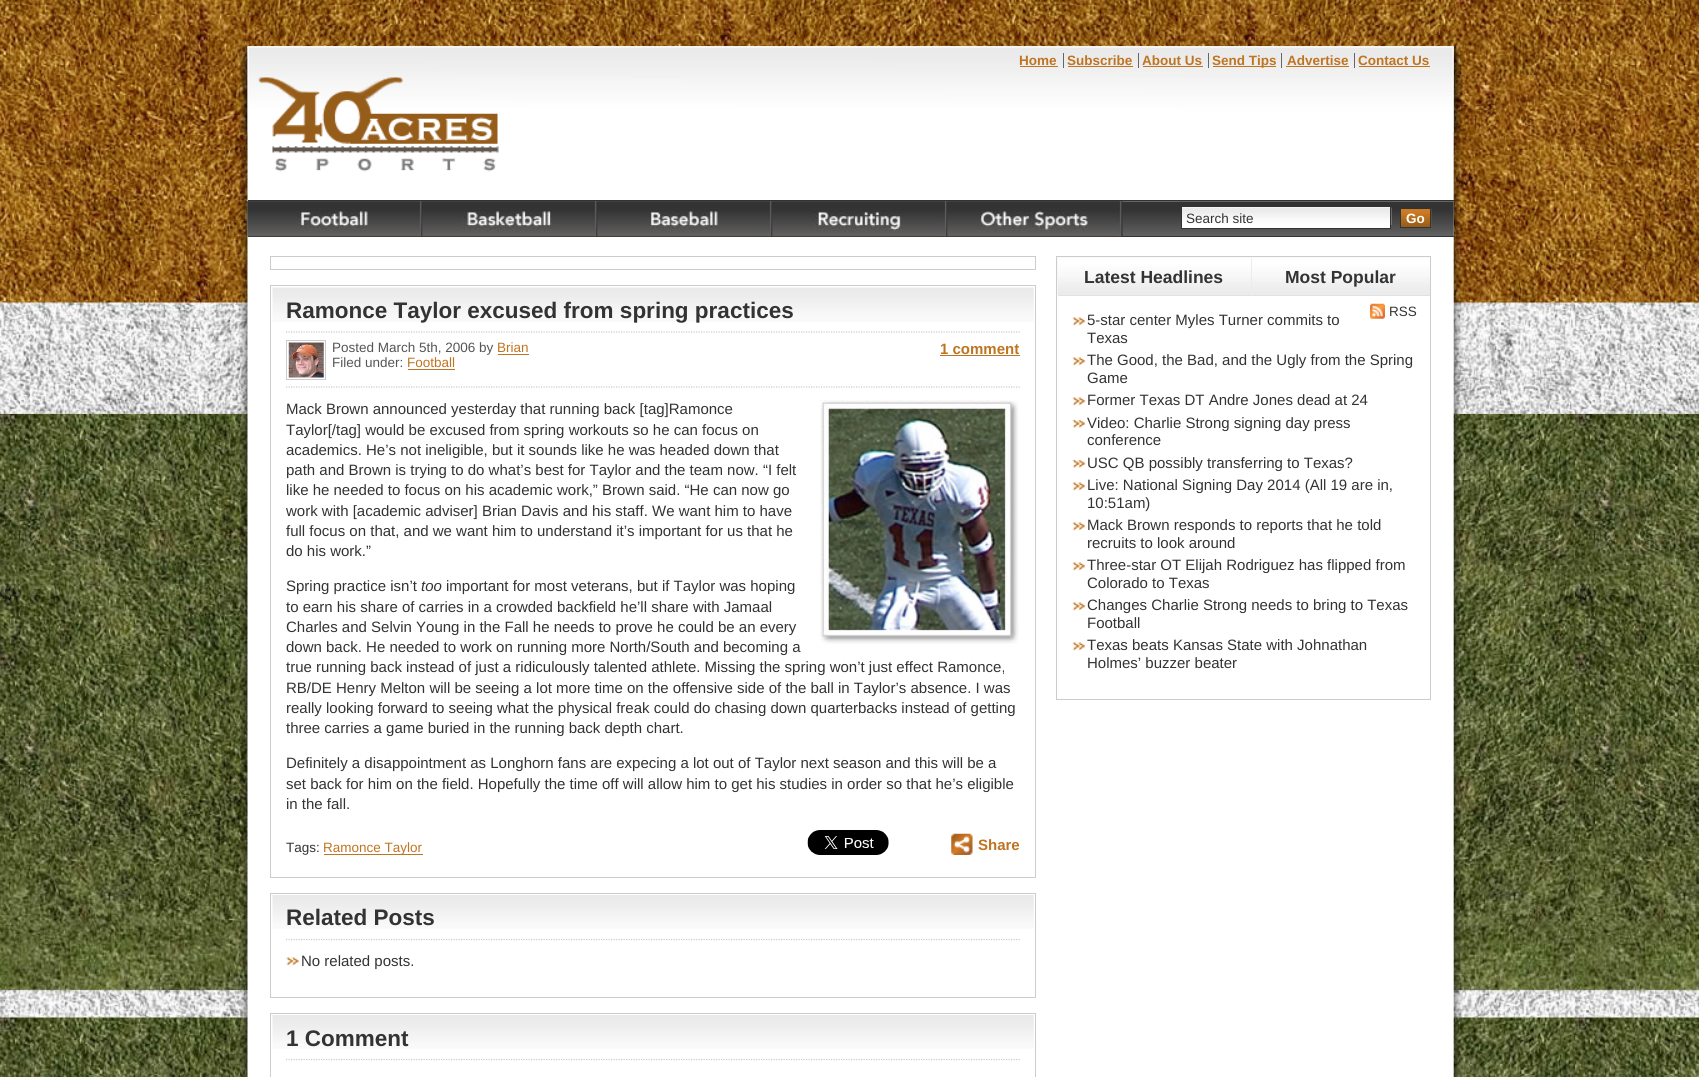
#include <cairo.h>
#include <math.h>
#include <stddef.h>


static void picture(cairo_t *cr, const char *path, double x, double y, double w, double h) {
    cairo_surface_t *image = cairo_image_surface_create_from_png(path);
    cairo_save(cr);
    cairo_set_source_surface(cr, image, x, y);
    cairo_rectangle(cr, x, y, w, h);
    cairo_fill(cr);
    cairo_restore(cr);
    cairo_surface_destroy(image);
}

int main(void) {
    cairo_surface_t *surface = cairo_image_surface_create(CAIRO_FORMAT_RGB24, 1699, 1077);
    cairo_t *cr = cairo_create(surface);
    cairo_font_options_t *options = cairo_font_options_create();
    cairo_font_options_set_hint_metrics(options, CAIRO_HINT_METRICS_OFF);
    cairo_font_options_set_hint_style(options, CAIRO_HINT_STYLE_NONE);
    cairo_set_font_options(cr, options);
    cairo_set_miter_limit(cr, 4);
    cairo_set_source_rgb(cr, 1, 1, 1);
    cairo_paint(cr);
    picture(cr, "img1.png", 0, 413, 1699, 664);
    picture(cr, "img2.png", 0, 0, 1699, 414);
    picture(cr, "img3.png", 239, 46, 1224, 1031);
    picture(cr, "img4.png", 239, 46, 1223, 87);
    cairo_select_font_face(cr, "Liberation Sans", CAIRO_FONT_SLANT_NORMAL, CAIRO_FONT_WEIGHT_BOLD);
    cairo_set_font_size(cr, 13.5);
    cairo_set_source_rgb(cr, 0.749, 0.455, 0.129);
    cairo_move_to(cr, 1019, 65);
    cairo_show_text(cr, "Home");
    cairo_rectangle(cr, 1020, 66, 38, 1);
    cairo_fill(cr);
    cairo_set_source_rgb(cr, 0.4, 0.4, 0.4);
    cairo_rectangle(cr, 1063, 53, 1, 15);
    cairo_fill(cr);
    cairo_set_source_rgb(cr, 0.749, 0.455, 0.129);
    cairo_move_to(cr, 1067, 65);
    cairo_show_text(cr, "Subscribe");
    cairo_rectangle(cr, 1068, 66, 65, 1);
    cairo_fill(cr);
    cairo_set_source_rgb(cr, 0.4, 0.4, 0.4);
    cairo_rectangle(cr, 1138, 53, 1, 15);
    cairo_fill(cr);
    cairo_set_source_rgb(cr, 0.749, 0.455, 0.129);
    cairo_move_to(cr, 1142, 65);
    cairo_show_text(cr, "About Us");
    cairo_rectangle(cr, 1143, 66, 60, 1);
    cairo_fill(cr);
    cairo_set_source_rgb(cr, 0.4, 0.4, 0.4);
    cairo_rectangle(cr, 1208, 53, 1, 15);
    cairo_fill(cr);
    cairo_set_source_rgb(cr, 0.749, 0.455, 0.129);
    cairo_rectangle(cr, 1213, 66, 63, 1);
    cairo_fill(cr);
    cairo_move_to(cr, 1212, 65);
    cairo_show_text(cr, "Send Tips");
    cairo_set_source_rgb(cr, 0.4, 0.4, 0.4);
    cairo_rectangle(cr, 1281, 53, 1, 15);
    cairo_fill(cr);
    cairo_set_source_rgb(cr, 0.749, 0.455, 0.129);
    cairo_move_to(cr, 1287, 65);
    cairo_show_text(cr, "Advertise");
    cairo_rectangle(cr, 1286, 66, 63, 1);
    cairo_fill(cr);
    cairo_set_source_rgb(cr, 0.4, 0.4, 0.4);
    cairo_rectangle(cr, 1354, 53, 1, 15);
    cairo_fill(cr);
    cairo_set_source_rgb(cr, 0.749, 0.455, 0.129);
    cairo_move_to(cr, 1358, 65);
    cairo_show_text(cr, "Contact Us");
    cairo_rectangle(cr, 1359, 66, 71, 1);
    cairo_fill(cr);
    picture(cr, "img5.png", 258, 76, 241, 96);
    picture(cr, "img6.png", 247, 201, 1207, 36);
    cairo_set_source_rgb(cr, 0.2, 0.2, 0.2);
    cairo_rectangle(cr, 248, 200, 1206, 1);
    cairo_fill(cr);
    cairo_rectangle(cr, 248, 236, 1206, 1);
    cairo_fill(cr);
    picture(cr, "img7.png", 247, 201, 176, 36);
    picture(cr, "img8.png", 422, 201, 176, 36);
    picture(cr, "img9.png", 597, 201, 176, 36);
    picture(cr, "img10.png", 772, 201, 176, 36);
    picture(cr, "img11.png", 947, 201, 176, 36);
    cairo_set_source_rgb(cr, 1, 1, 1);
    cairo_rectangle(cr, 1182, 207, 208, 21);
    cairo_fill(cr);
    picture(cr, "img12.png", 1182, 207, 210, 18);
    cairo_rectangle(cr, 1181.5, 206.5, 209, 22);
    cairo_set_source_rgb(cr, 0.2, 0.2, 0.2);
    cairo_set_line_width(cr, 1);
    cairo_stroke(cr);
    cairo_select_font_face(cr, "Liberation Sans", CAIRO_FONT_SLANT_NORMAL, CAIRO_FONT_WEIGHT_NORMAL);
    cairo_move_to(cr, 1186, 223);
    cairo_show_text(cr, "Search site");
    picture(cr, "img13.png", 1401, 208, 31, 20);
    cairo_rectangle(cr, 1400.5, 208.5, 30, 19);
    cairo_stroke(cr);
    cairo_select_font_face(cr, "Liberation Sans", CAIRO_FONT_SLANT_NORMAL, CAIRO_FONT_WEIGHT_BOLD);
    cairo_set_source_rgb(cr, 1, 1, 1);
    cairo_move_to(cr, 1406, 223);
    cairo_show_text(cr, "Go");
    cairo_rectangle(cr, 270.5, 256.5, 765, 13);
    cairo_set_source_rgb(cr, 0.8, 0.8, 0.8);
    cairo_stroke(cr);
    cairo_rectangle(cr, 270.5, 285.5, 765, 592);
    cairo_stroke(cr);
    picture(cr, "img14.png", 272, 287, 762, 35);
    cairo_set_font_size(cr, 22.5);
    cairo_set_source_rgb(cr, 0.2, 0.2, 0.2);
    cairo_move_to(cr, 286, 318);
    cairo_show_text(cr, "Ramonce Taylor excused from spring practices");
    cairo_new_path(cr);
    cairo_move_to(cr, 286, 332);
    cairo_line_to(cr, 1020, 332);
    cairo_set_source_rgb(cr, 0.8, 0.8, 0.8);
    cairo_set_line_width(cr, 1.2);
    cairo_set_dash(cr, (double[]){1.25, 1.25}, 2, 0);
    cairo_stroke(cr);
    cairo_rectangle(cr, 286.5, 340.5, 39, 39);
    cairo_set_line_width(cr, 1);
    cairo_set_dash(cr, NULL, 0, 0);
    cairo_stroke(cr);
    picture(cr, "img15.png", 288, 342, 36, 36);
    cairo_select_font_face(cr, "Liberation Sans", CAIRO_FONT_SLANT_NORMAL, CAIRO_FONT_WEIGHT_NORMAL);
    cairo_set_font_size(cr, 13.5);
    cairo_set_source_rgb(cr, 0.333, 0.333, 0.333);
    cairo_move_to(cr, 332, 352);
    cairo_show_text(cr, "Posted March 5th, 2006 by");
    cairo_set_source_rgb(cr, 0.749, 0.455, 0.129);
    cairo_move_to(cr, 497, 352);
    cairo_show_text(cr, "Brian");
    cairo_rectangle(cr, 498, 354, 31, 1);
    cairo_fill(cr);
    cairo_set_source_rgb(cr, 0.333, 0.333, 0.333);
    cairo_move_to(cr, 332, 367);
    cairo_show_text(cr, "Filed under:");
    cairo_set_source_rgb(cr, 0.749, 0.455, 0.129);
    cairo_move_to(cr, 407, 367);
    cairo_show_text(cr, "Football");
    cairo_rectangle(cr, 408, 369, 47, 1);
    cairo_fill(cr);
    cairo_select_font_face(cr, "Liberation Sans", CAIRO_FONT_SLANT_NORMAL, CAIRO_FONT_WEIGHT_BOLD);
    cairo_set_font_size(cr, 15);
    cairo_move_to(cr, 940, 354);
    cairo_show_text(cr, "1 comment");
    cairo_rectangle(cr, 940, 355, 80, 1);
    cairo_fill(cr);
    cairo_new_path(cr);
    cairo_move_to(cr, 286, 387);
    cairo_line_to(cr, 1020, 387);
    cairo_set_source_rgb(cr, 0.8, 0.8, 0.8);
    cairo_set_line_width(cr, 1.2);
    cairo_set_dash(cr, (double[]){1.25, 1.25}, 2, 0);
    cairo_stroke(cr);
    cairo_select_font_face(cr, "Liberation Sans", CAIRO_FONT_SLANT_NORMAL, CAIRO_FONT_WEIGHT_NORMAL);
    cairo_set_source_rgb(cr, 0.2, 0.2, 0.2);
    cairo_move_to(cr, 286, 414);
    cairo_show_text(cr, "Mack Brown announced yesterday that running back [tag]Ramonce");
    picture(cr, "img16.png", 820, 400, 199, 244);
    cairo_move_to(cr, 286, 435);
    cairo_show_text(cr, "Taylor[/tag] would be excused from spring workouts so he can focus on");
    cairo_move_to(cr, 286, 455);
    cairo_show_text(cr, "academics. He’s not ineligible, but it sounds like he was headed down that");
    cairo_move_to(cr, 286, 475);
    cairo_show_text(cr, "path and Brown is trying to do what’s best for Taylor and the team now. “I felt");
    cairo_move_to(cr, 286, 495);
    cairo_show_text(cr, "like he needed to focus on his academic work,” Brown said. “He can now go");
    cairo_move_to(cr, 286, 516);
    cairo_show_text(cr, "work with [academic adviser] Brian Davis and his staff. We want him to have");
    cairo_move_to(cr, 286, 536);
    cairo_show_text(cr, "full focus on that, and we want him to understand it’s important for us that he");
    cairo_move_to(cr, 286, 556);
    cairo_show_text(cr, "do his work.”");
    cairo_move_to(cr, 286, 591);
    cairo_show_text(cr, "Spring practice isn’t");
    cairo_select_font_face(cr, "Liberation Sans", CAIRO_FONT_SLANT_ITALIC, CAIRO_FONT_WEIGHT_NORMAL);
    cairo_move_to(cr, 421, 591);
    cairo_show_text(cr, "too");
    cairo_select_font_face(cr, "Liberation Sans", CAIRO_FONT_SLANT_NORMAL, CAIRO_FONT_WEIGHT_NORMAL);
    cairo_move_to(cr, 446, 591);
    cairo_show_text(cr, "important for most veterans, but if Taylor was hoping");
    cairo_move_to(cr, 286, 612);
    cairo_show_text(cr, "to earn his share of carries in a crowded backfield he’ll share with Jamaal");
    cairo_move_to(cr, 286, 632);
    cairo_show_text(cr, "Charles and Selvin Young in the Fall he needs to prove he could be an every");
    cairo_move_to(cr, 286, 652);
    cairo_show_text(cr, "down back. He needed to work on running more North/South and becoming a");
    cairo_move_to(cr, 286, 672);
    cairo_show_text(cr, "true running back instead of just a ridiculously talented athlete. Missing the spring won’t just effect Ramonce,");
    cairo_move_to(cr, 286, 693);
    cairo_show_text(cr, "RB/DE Henry Melton will be seeing a lot more time on the offensive side of the ball in Taylor’s absence. I was");
    cairo_move_to(cr, 286, 713);
    cairo_show_text(cr, "really looking forward to seeing what the physical freak could do chasing down quarterbacks instead of getting");
    cairo_move_to(cr, 286, 733);
    cairo_show_text(cr, "three carries a game buried in the running back depth chart.");
    cairo_move_to(cr, 286, 768);
    cairo_show_text(cr, "Definitely a disappointment as Longhorn fans are expecing a lot out of Taylor next season and this will be a");
    cairo_move_to(cr, 286, 789);
    cairo_show_text(cr, "set back for him on the field. Hopefully the time off will allow him to get his studies in order so that he’s eligible");
    cairo_move_to(cr, 286, 809);
    cairo_show_text(cr, "in the fall.");
    cairo_set_font_size(cr, 13.5);
    cairo_move_to(cr, 286, 852);
    cairo_show_text(cr, "Tags:");
    cairo_set_source_rgb(cr, 0.749, 0.455, 0.129);
    cairo_rectangle(cr, 324, 854, 99, 1);
    cairo_fill(cr);
    cairo_move_to(cr, 323, 852);
    cairo_show_text(cr, "Ramonce Taylor");
    picture(cr, "img17.png", 807, 830, 82, 25);
    picture(cr, "img18.png", 951, 833, 22, 22);
    cairo_select_font_face(cr, "Liberation Sans", CAIRO_FONT_SLANT_NORMAL, CAIRO_FONT_WEIGHT_BOLD);
    cairo_set_font_size(cr, 15);
    cairo_move_to(cr, 978, 850);
    cairo_show_text(cr, "Share");
    cairo_rectangle(cr, 270.5, 893.5, 765, 104);
    cairo_set_source_rgb(cr, 0.8, 0.8, 0.8);
    cairo_set_line_width(cr, 1);
    cairo_set_dash(cr, NULL, 0, 0);
    cairo_stroke(cr);
    picture(cr, "img19.png", 272, 895, 762, 34);
    cairo_set_font_size(cr, 22.5);
    cairo_set_source_rgb(cr, 0.2, 0.2, 0.2);
    cairo_move_to(cr, 286, 925);
    cairo_show_text(cr, "Related Posts");
    cairo_new_path(cr);
    cairo_move_to(cr, 286, 939.5);
    cairo_line_to(cr, 1020, 939.5);
    cairo_set_source_rgb(cr, 0.8, 0.8, 0.8);
    cairo_set_line_width(cr, 1.2);
    cairo_set_dash(cr, (double[]){1.25, 1.25}, 2, 0);
    cairo_stroke(cr);
    picture(cr, "img20.png", 286, 957, 13, 9);
    cairo_select_font_face(cr, "Liberation Sans", CAIRO_FONT_SLANT_NORMAL, CAIRO_FONT_WEIGHT_NORMAL);
    cairo_set_font_size(cr, 15);
    cairo_set_source_rgb(cr, 0.2, 0.2, 0.2);
    cairo_move_to(cr, 301, 966);
    cairo_show_text(cr, "No related posts.");
    cairo_rectangle(cr, 270.5, 1013.5, 765, 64);
    cairo_set_source_rgb(cr, 0.8, 0.8, 0.8);
    cairo_set_line_width(cr, 1);
    cairo_set_dash(cr, NULL, 0, 0);
    cairo_stroke(cr);
    picture(cr, "img19.png", 272, 1015, 762, 34);
    cairo_select_font_face(cr, "Liberation Sans", CAIRO_FONT_SLANT_NORMAL, CAIRO_FONT_WEIGHT_BOLD);
    cairo_set_font_size(cr, 22.5);
    cairo_set_source_rgb(cr, 0.2, 0.2, 0.2);
    cairo_move_to(cr, 286, 1046);
    cairo_show_text(cr, "1 Comment");
    cairo_new_path(cr);
    cairo_move_to(cr, 286, 1059.5);
    cairo_line_to(cr, 1020, 1059.5);
    cairo_set_source_rgb(cr, 0.8, 0.8, 0.8);
    cairo_set_line_width(cr, 1.2);
    cairo_set_dash(cr, (double[]){1.25, 1.25}, 2, 0);
    cairo_stroke(cr);
    cairo_rectangle(cr, 1056.5, 256.5, 374, 443);
    cairo_set_line_width(cr, 1);
    cairo_set_dash(cr, NULL, 0, 0);
    cairo_stroke(cr);
    picture(cr, "img21.png", 1057, 257, 373, 35);
    picture(cr, "img22.png", 1057, 257, 196, 38);
    cairo_set_source_rgb(cr, 1, 1, 1);
    cairo_rectangle(cr, 1252, 258, 1, 1);
    cairo_fill(cr);
    cairo_set_source_rgb(cr, 0.882, 0.882, 0.882);
    cairo_rectangle(cr, 1058, 295, 372, 1);
    cairo_fill(cr);
    cairo_set_font_size(cr, 17.5);
    cairo_set_source_rgb(cr, 0.2, 0.2, 0.2);
    cairo_move_to(cr, 1084, 283);
    cairo_show_text(cr, "Latest Headlines");
    picture(cr, "img23.png", 1251, 257, 179, 38);
    cairo_set_source_rgb(cr, 0.925, 0.925, 0.925);
    cairo_rectangle(cr, 1251, 258, 1, 38);
    cairo_fill(cr);
    cairo_set_source_rgb(cr, 0.2, 0.2, 0.2);
    cairo_move_to(cr, 1285, 283);
    cairo_show_text(cr, "Most Popular");
    picture(cr, "img24.png", 1370, 303, 15, 16);
    cairo_select_font_face(cr, "Liberation Sans", CAIRO_FONT_SLANT_NORMAL, CAIRO_FONT_WEIGHT_NORMAL);
    cairo_set_font_size(cr, 13.5);
    cairo_move_to(cr, 1389, 316);
    cairo_show_text(cr, "RSS");
    picture(cr, "img25.png", 1072, 317, 14, 9);
    cairo_set_font_size(cr, 15);
    cairo_move_to(cr, 1087, 325);
    cairo_show_text(cr, "5-star center Myles Turner commits to");
    cairo_move_to(cr, 1087, 343);
    cairo_show_text(cr, "Texas");
    picture(cr, "img25.png", 1072, 357, 14, 9);
    cairo_move_to(cr, 1087, 365);
    cairo_show_text(cr, "The Good, the Bad, and the Ugly from the Spring");
    cairo_move_to(cr, 1087, 383);
    cairo_show_text(cr, "Game");
    picture(cr, "img25.png", 1072, 397, 14, 9);
    cairo_move_to(cr, 1087, 405);
    cairo_show_text(cr, "Former Texas DT Andre Jones dead at 24");
    picture(cr, "img26.png", 1072, 419, 14, 9);
    cairo_move_to(cr, 1087, 428);
    cairo_show_text(cr, "Video: Charlie Strong signing day press");
    cairo_move_to(cr, 1087, 445);
    cairo_show_text(cr, "conference");
    picture(cr, "img26.png", 1072, 459, 14, 9);
    cairo_move_to(cr, 1087, 468);
    cairo_show_text(cr, "USC QB possibly transferring to Texas?");
    picture(cr, "img25.png", 1072, 482, 14, 9);
    cairo_move_to(cr, 1087, 490);
    cairo_show_text(cr, "Live: National Signing Day 2014 (All 19 are in,");
    cairo_move_to(cr, 1087, 508);
    cairo_show_text(cr, "10:51am)");
    picture(cr, "img25.png", 1072, 522, 14, 9);
    cairo_move_to(cr, 1087, 530);
    cairo_show_text(cr, "Mack Brown responds to reports that he told");
    cairo_move_to(cr, 1087, 548);
    cairo_show_text(cr, "recruits to look around");
    picture(cr, "img25.png", 1072, 562, 14, 9);
    cairo_move_to(cr, 1087, 570);
    cairo_show_text(cr, "Three-star OT Elijah Rodriguez has flipped from");
    cairo_move_to(cr, 1087, 588);
    cairo_show_text(cr, "Colorado to Texas");
    picture(cr, "img25.png", 1072, 602, 14, 9);
    cairo_move_to(cr, 1087, 610);
    cairo_show_text(cr, "Changes Charlie Strong needs to bring to Texas");
    cairo_move_to(cr, 1087, 628);
    cairo_show_text(cr, "Football");
    picture(cr, "img25.png", 1072, 642, 14, 9);
    cairo_move_to(cr, 1087, 650);
    cairo_show_text(cr, "Texas beats Kansas State with Johnathan");
    cairo_move_to(cr, 1087, 668);
    cairo_show_text(cr, "Holmes’ buzzer beater");
    cairo_surface_write_to_png(surface, "page.png");
    cairo_font_options_destroy(options);
    cairo_destroy(cr);
    cairo_surface_destroy(surface);
    return 0;
}
